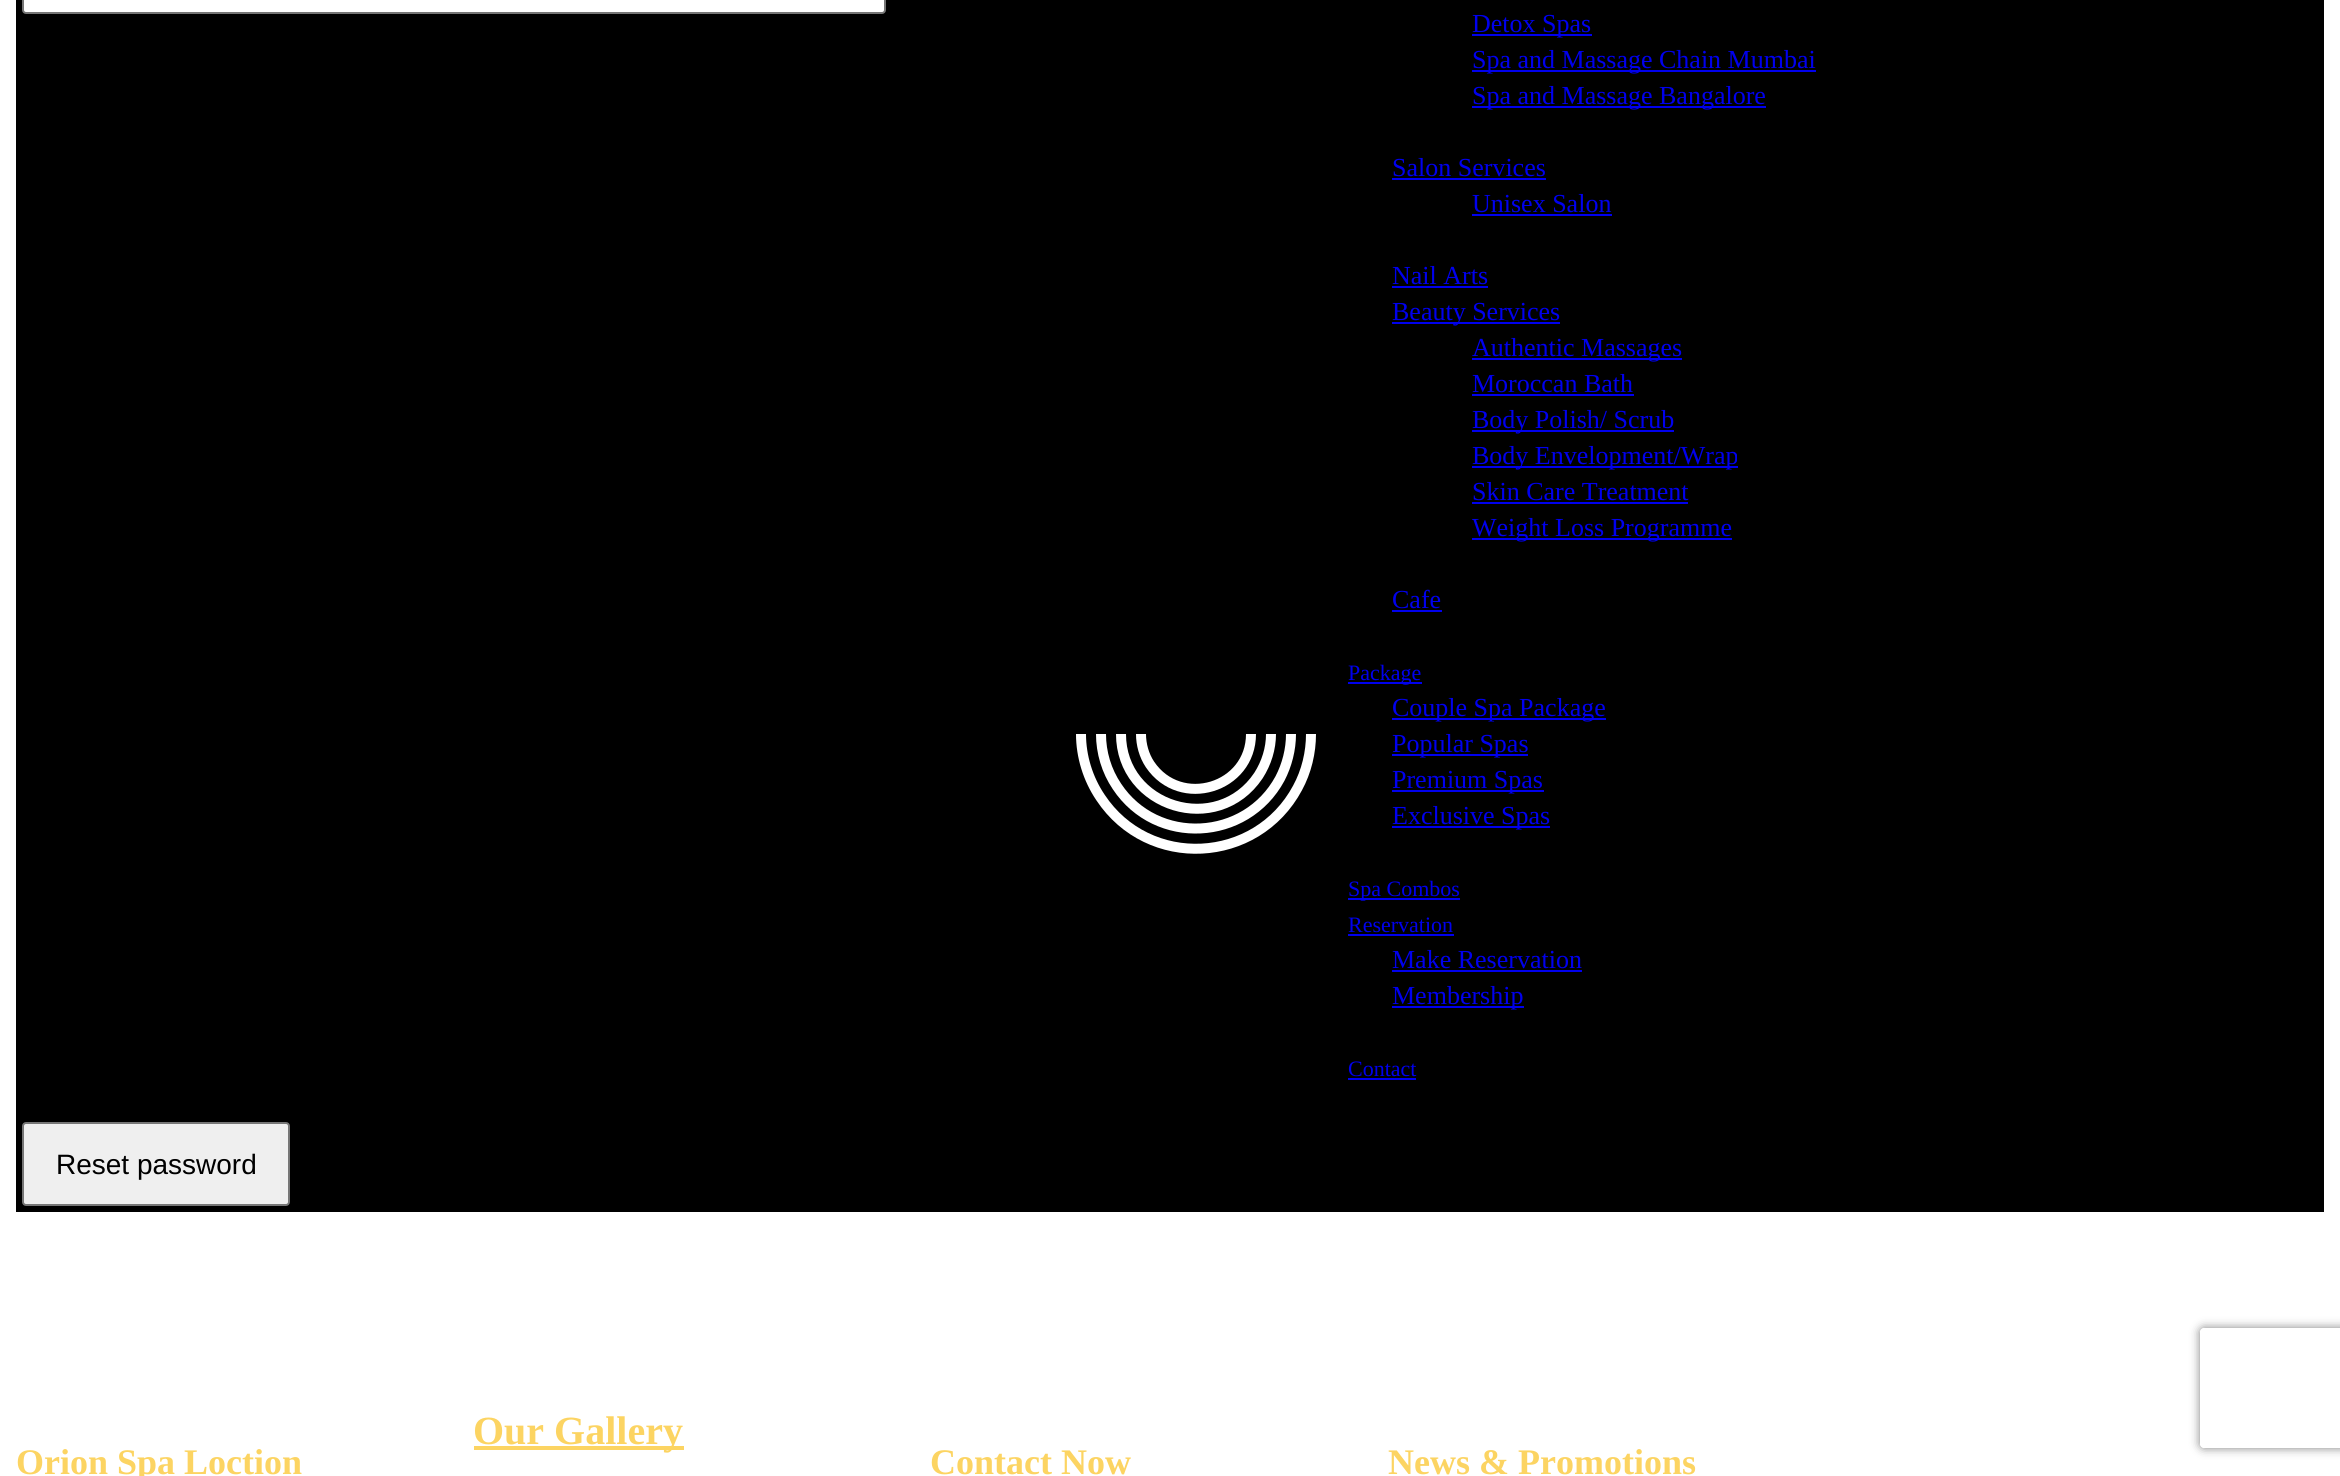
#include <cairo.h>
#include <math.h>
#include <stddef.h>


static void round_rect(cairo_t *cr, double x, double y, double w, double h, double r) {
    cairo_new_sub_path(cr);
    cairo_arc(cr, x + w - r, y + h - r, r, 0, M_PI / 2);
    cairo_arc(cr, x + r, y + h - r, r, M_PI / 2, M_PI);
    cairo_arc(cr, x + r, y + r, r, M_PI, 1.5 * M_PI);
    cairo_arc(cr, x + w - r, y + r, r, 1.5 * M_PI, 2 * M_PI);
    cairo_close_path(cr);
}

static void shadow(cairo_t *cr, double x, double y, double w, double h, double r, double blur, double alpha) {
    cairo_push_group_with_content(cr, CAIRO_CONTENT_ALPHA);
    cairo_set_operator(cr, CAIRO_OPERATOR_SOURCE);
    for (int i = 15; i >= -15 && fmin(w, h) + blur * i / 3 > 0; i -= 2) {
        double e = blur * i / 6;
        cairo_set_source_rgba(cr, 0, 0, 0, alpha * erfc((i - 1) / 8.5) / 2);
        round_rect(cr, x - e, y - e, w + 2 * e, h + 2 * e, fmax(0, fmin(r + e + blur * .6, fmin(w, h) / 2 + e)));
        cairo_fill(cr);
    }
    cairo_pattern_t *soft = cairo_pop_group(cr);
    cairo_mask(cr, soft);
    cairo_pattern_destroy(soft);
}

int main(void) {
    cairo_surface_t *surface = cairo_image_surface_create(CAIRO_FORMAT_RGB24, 2340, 1476);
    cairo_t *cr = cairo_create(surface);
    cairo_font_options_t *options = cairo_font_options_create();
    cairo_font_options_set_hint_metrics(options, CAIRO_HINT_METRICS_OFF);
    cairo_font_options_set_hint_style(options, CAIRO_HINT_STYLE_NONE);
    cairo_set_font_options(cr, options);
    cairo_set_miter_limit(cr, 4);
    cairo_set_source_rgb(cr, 1, 1, 1);
    cairo_paint(cr);
    cairo_set_source_rgb(cr, 0, 0, 0);
    cairo_rectangle(cr, 16, 0, 2308, 1212);
    cairo_fill(cr);
    cairo_set_source_rgb(cr, 0, 0, 0.933);
    cairo_rectangle(cr, 1472, 34, 120, 2);
    cairo_fill(cr);
    cairo_select_font_face(cr, "Liberation Serif", CAIRO_FONT_SLANT_NORMAL, CAIRO_FONT_WEIGHT_NORMAL);
    cairo_set_font_size(cr, 26);
    cairo_move_to(cr, 1472, 32);
    cairo_show_text(cr, "Detox Spas");
    cairo_rectangle(cr, 1472, 70, 344, 2);
    cairo_fill(cr);
    cairo_move_to(cr, 1472, 68);
    cairo_show_text(cr, "Spa and Massage Chain Mumbai");
    cairo_rectangle(cr, 1472, 106, 294, 2);
    cairo_fill(cr);
    cairo_move_to(cr, 1472, 104);
    cairo_show_text(cr, "Spa and Massage Bangalore");
    cairo_move_to(cr, 1392, 176);
    cairo_show_text(cr, "Salon Services");
    cairo_rectangle(cr, 1392, 178, 154, 2);
    cairo_fill(cr);
    cairo_move_to(cr, 1472, 212);
    cairo_show_text(cr, "Unisex Salon");
    cairo_rectangle(cr, 1472, 214, 140, 2);
    cairo_fill(cr);
    cairo_move_to(cr, 1392, 284);
    cairo_show_text(cr, "Nail Arts");
    cairo_rectangle(cr, 1392, 286, 96, 2);
    cairo_fill(cr);
    cairo_rectangle(cr, 1392, 322, 168, 2);
    cairo_fill(cr);
    cairo_move_to(cr, 1392, 320);
    cairo_show_text(cr, "Beauty Services");
    cairo_rectangle(cr, 1472, 358, 210, 2);
    cairo_fill(cr);
    cairo_move_to(cr, 1472, 356);
    cairo_show_text(cr, "Authentic Massages");
    cairo_move_to(cr, 1472, 392);
    cairo_show_text(cr, "Moroccan Bath");
    cairo_rectangle(cr, 1472, 394, 162, 2);
    cairo_fill(cr);
    cairo_rectangle(cr, 1472, 430, 202, 2);
    cairo_fill(cr);
    cairo_move_to(cr, 1472, 428);
    cairo_show_text(cr, "Body Polish/ Scrub");
    cairo_rectangle(cr, 1472, 466, 266, 2);
    cairo_fill(cr);
    cairo_move_to(cr, 1472, 464);
    cairo_show_text(cr, "Body Envelopment/Wrap");
    cairo_move_to(cr, 1472, 500);
    cairo_show_text(cr, "Skin Care Treatment");
    cairo_rectangle(cr, 1472, 502, 216, 2);
    cairo_fill(cr);
    cairo_rectangle(cr, 1472, 538, 260, 2);
    cairo_fill(cr);
    cairo_move_to(cr, 1472, 536);
    cairo_show_text(cr, "Weight Loss Programme");
    cairo_move_to(cr, 1392, 608);
    cairo_show_text(cr, "Cafe");
    cairo_rectangle(cr, 1392, 610, 50, 2);
    cairo_fill(cr);
    cairo_rectangle(cr, 1348, 682, 74, 2);
    cairo_fill(cr);
    cairo_set_font_size(cr, 22);
    cairo_move_to(cr, 1348, 680);
    cairo_show_text(cr, "Package");
    cairo_rectangle(cr, 1392, 718, 214, 2);
    cairo_fill(cr);
    cairo_set_font_size(cr, 26);
    cairo_move_to(cr, 1392, 716);
    cairo_show_text(cr, "Couple Spa Package");
    cairo_rectangle(cr, 1392, 754, 136, 2);
    cairo_fill(cr);
    cairo_move_to(cr, 1392, 752);
    cairo_show_text(cr, "Popular Spas");
    cairo_rectangle(cr, 1392, 790, 152, 2);
    cairo_fill(cr);
    cairo_move_to(cr, 1392, 788);
    cairo_show_text(cr, "Premium Spas");
    cairo_rectangle(cr, 1392, 826, 158, 2);
    cairo_fill(cr);
    cairo_move_to(cr, 1392, 824);
    cairo_show_text(cr, "Exclusive Spas");
    cairo_rectangle(cr, 1348, 898, 112, 2);
    cairo_fill(cr);
    cairo_set_font_size(cr, 22);
    cairo_move_to(cr, 1348, 896);
    cairo_show_text(cr, "Spa Combos");
    cairo_move_to(cr, 1348, 932);
    cairo_show_text(cr, "Reservation");
    cairo_rectangle(cr, 1348, 934, 106, 2);
    cairo_fill(cr);
    cairo_set_font_size(cr, 26);
    cairo_move_to(cr, 1392, 968);
    cairo_show_text(cr, "Make Reservation");
    cairo_rectangle(cr, 1392, 970, 190, 2);
    cairo_fill(cr);
    cairo_rectangle(cr, 1392, 1006, 132, 2);
    cairo_fill(cr);
    cairo_move_to(cr, 1392, 1004);
    cairo_show_text(cr, "Membership");
    cairo_set_font_size(cr, 22);
    cairo_move_to(cr, 1348, 1076);
    cairo_show_text(cr, "Contact");
    cairo_rectangle(cr, 1348, 1078, 68, 2);
    cairo_fill(cr);
    cairo_set_source_rgb(cr, 1, 1, 1);
    round_rect(cr, 23, -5, 862, 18, 3);
    cairo_fill_preserve(cr);
    cairo_set_source_rgb(cr, 0.463, 0.463, 0.463);
    cairo_stroke(cr);
    cairo_set_source_rgb(cr, 0.937, 0.937, 0.937);
    round_rect(cr, 23, 1123, 266, 82, 3);
    cairo_fill_preserve(cr);
    cairo_set_source_rgb(cr, 0.463, 0.463, 0.463);
    cairo_stroke(cr);
    cairo_select_font_face(cr, "Liberation Sans", CAIRO_FONT_SLANT_NORMAL, CAIRO_FONT_WEIGHT_NORMAL);
    cairo_set_font_size(cr, 28);
    cairo_set_source_rgb(cr, 0, 0, 0);
    cairo_move_to(cr, 56, 1174);
    cairo_show_text(cr, "Reset password");
    cairo_set_source_rgb(cr, 0.988, 0.831, 0.384);
    cairo_rectangle(cr, 474, 1446, 210, 4);
    cairo_fill(cr);
    cairo_select_font_face(cr, "Liberation Serif", CAIRO_FONT_SLANT_NORMAL, CAIRO_FONT_WEIGHT_BOLD);
    cairo_set_font_size(cr, 40);
    cairo_move_to(cr, 473, 1444);
    cairo_show_text(cr, "Our Gallery");
    cairo_set_font_size(cr, 36);
    cairo_move_to(cr, 16, 1474);
    cairo_show_text(cr, "Orion Spa Loction");
    cairo_move_to(cr, 930, 1474);
    cairo_show_text(cr, "Contact Now");
    cairo_move_to(cr, 1388, 1474);
    cairo_show_text(cr, "News & Promotions");
    cairo_new_path(cr);
    cairo_move_to(cr, 1311, 734);
    cairo_curve_to(cr, 1311, 752.5, 1306.5, 771.5, 1297.5, 788);
    cairo_curve_to(cr, 1256.5, 864.5, 1148.5, 870, 1100.5, 797.5);
    cairo_curve_to(cr, 1088, 779, 1081, 756.5, 1081, 734);
    cairo_set_source_rgb(cr, 1, 1, 1);
    cairo_set_line_width(cr, 10);
    cairo_stroke(cr);
    cairo_new_path(cr);
    cairo_move_to(cr, 1291, 734);
    cairo_curve_to(cr, 1291, 749.5, 1287, 765, 1280, 778.5);
    cairo_curve_to(cr, 1246, 841.5, 1156.5, 846, 1117, 786.5);
    cairo_curve_to(cr, 1106.5, 771, 1101, 752.5, 1101, 734);
    cairo_stroke(cr);
    cairo_new_path(cr);
    cairo_move_to(cr, 1271, 734);
    cairo_curve_to(cr, 1271, 748.5, 1266.5, 763, 1258.5, 775.5);
    cairo_curve_to(cr, 1217.5, 837, 1121, 807.5, 1121, 734);
    cairo_stroke(cr);
    cairo_new_path(cr);
    cairo_move_to(cr, 1251, 734);
    cairo_curve_to(cr, 1251, 788, 1180.5, 809.5, 1150, 764.5);
    cairo_curve_to(cr, 1144, 755.5, 1141, 744.5, 1141, 734);
    cairo_stroke(cr);
    cairo_save(cr);
    cairo_set_fill_rule(cr, CAIRO_FILL_RULE_EVEN_ODD);
    cairo_new_path(cr);
    cairo_move_to(cr, 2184, 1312);
    cairo_line_to(cr, 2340, 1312);
    cairo_line_to(cr, 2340, 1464);
    cairo_line_to(cr, 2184, 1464);
    cairo_close_path(cr);
    cairo_move_to(cr, 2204, 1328);
    cairo_line_to(cr, 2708, 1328);
    cairo_curve_to(cr, 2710, 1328, 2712, 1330, 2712, 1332);
    cairo_line_to(cr, 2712, 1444);
    cairo_curve_to(cr, 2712, 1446, 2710, 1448, 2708, 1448);
    cairo_line_to(cr, 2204, 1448);
    cairo_curve_to(cr, 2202, 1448, 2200, 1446, 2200, 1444);
    cairo_line_to(cr, 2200, 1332);
    cairo_curve_to(cr, 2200, 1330, 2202, 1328, 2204, 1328);
    cairo_close_path(cr);
    cairo_clip(cr);
    cairo_set_source_rgb(cr, 0.502, 0.502, 0.502);
    shadow(cr, 2200, 1328, 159, 120, 4, 5, 1);
    cairo_restore(cr);
    cairo_surface_write_to_png(surface, "page.png");
    cairo_font_options_destroy(options);
    cairo_destroy(cr);
    cairo_surface_destroy(surface);
    return 0;
}
